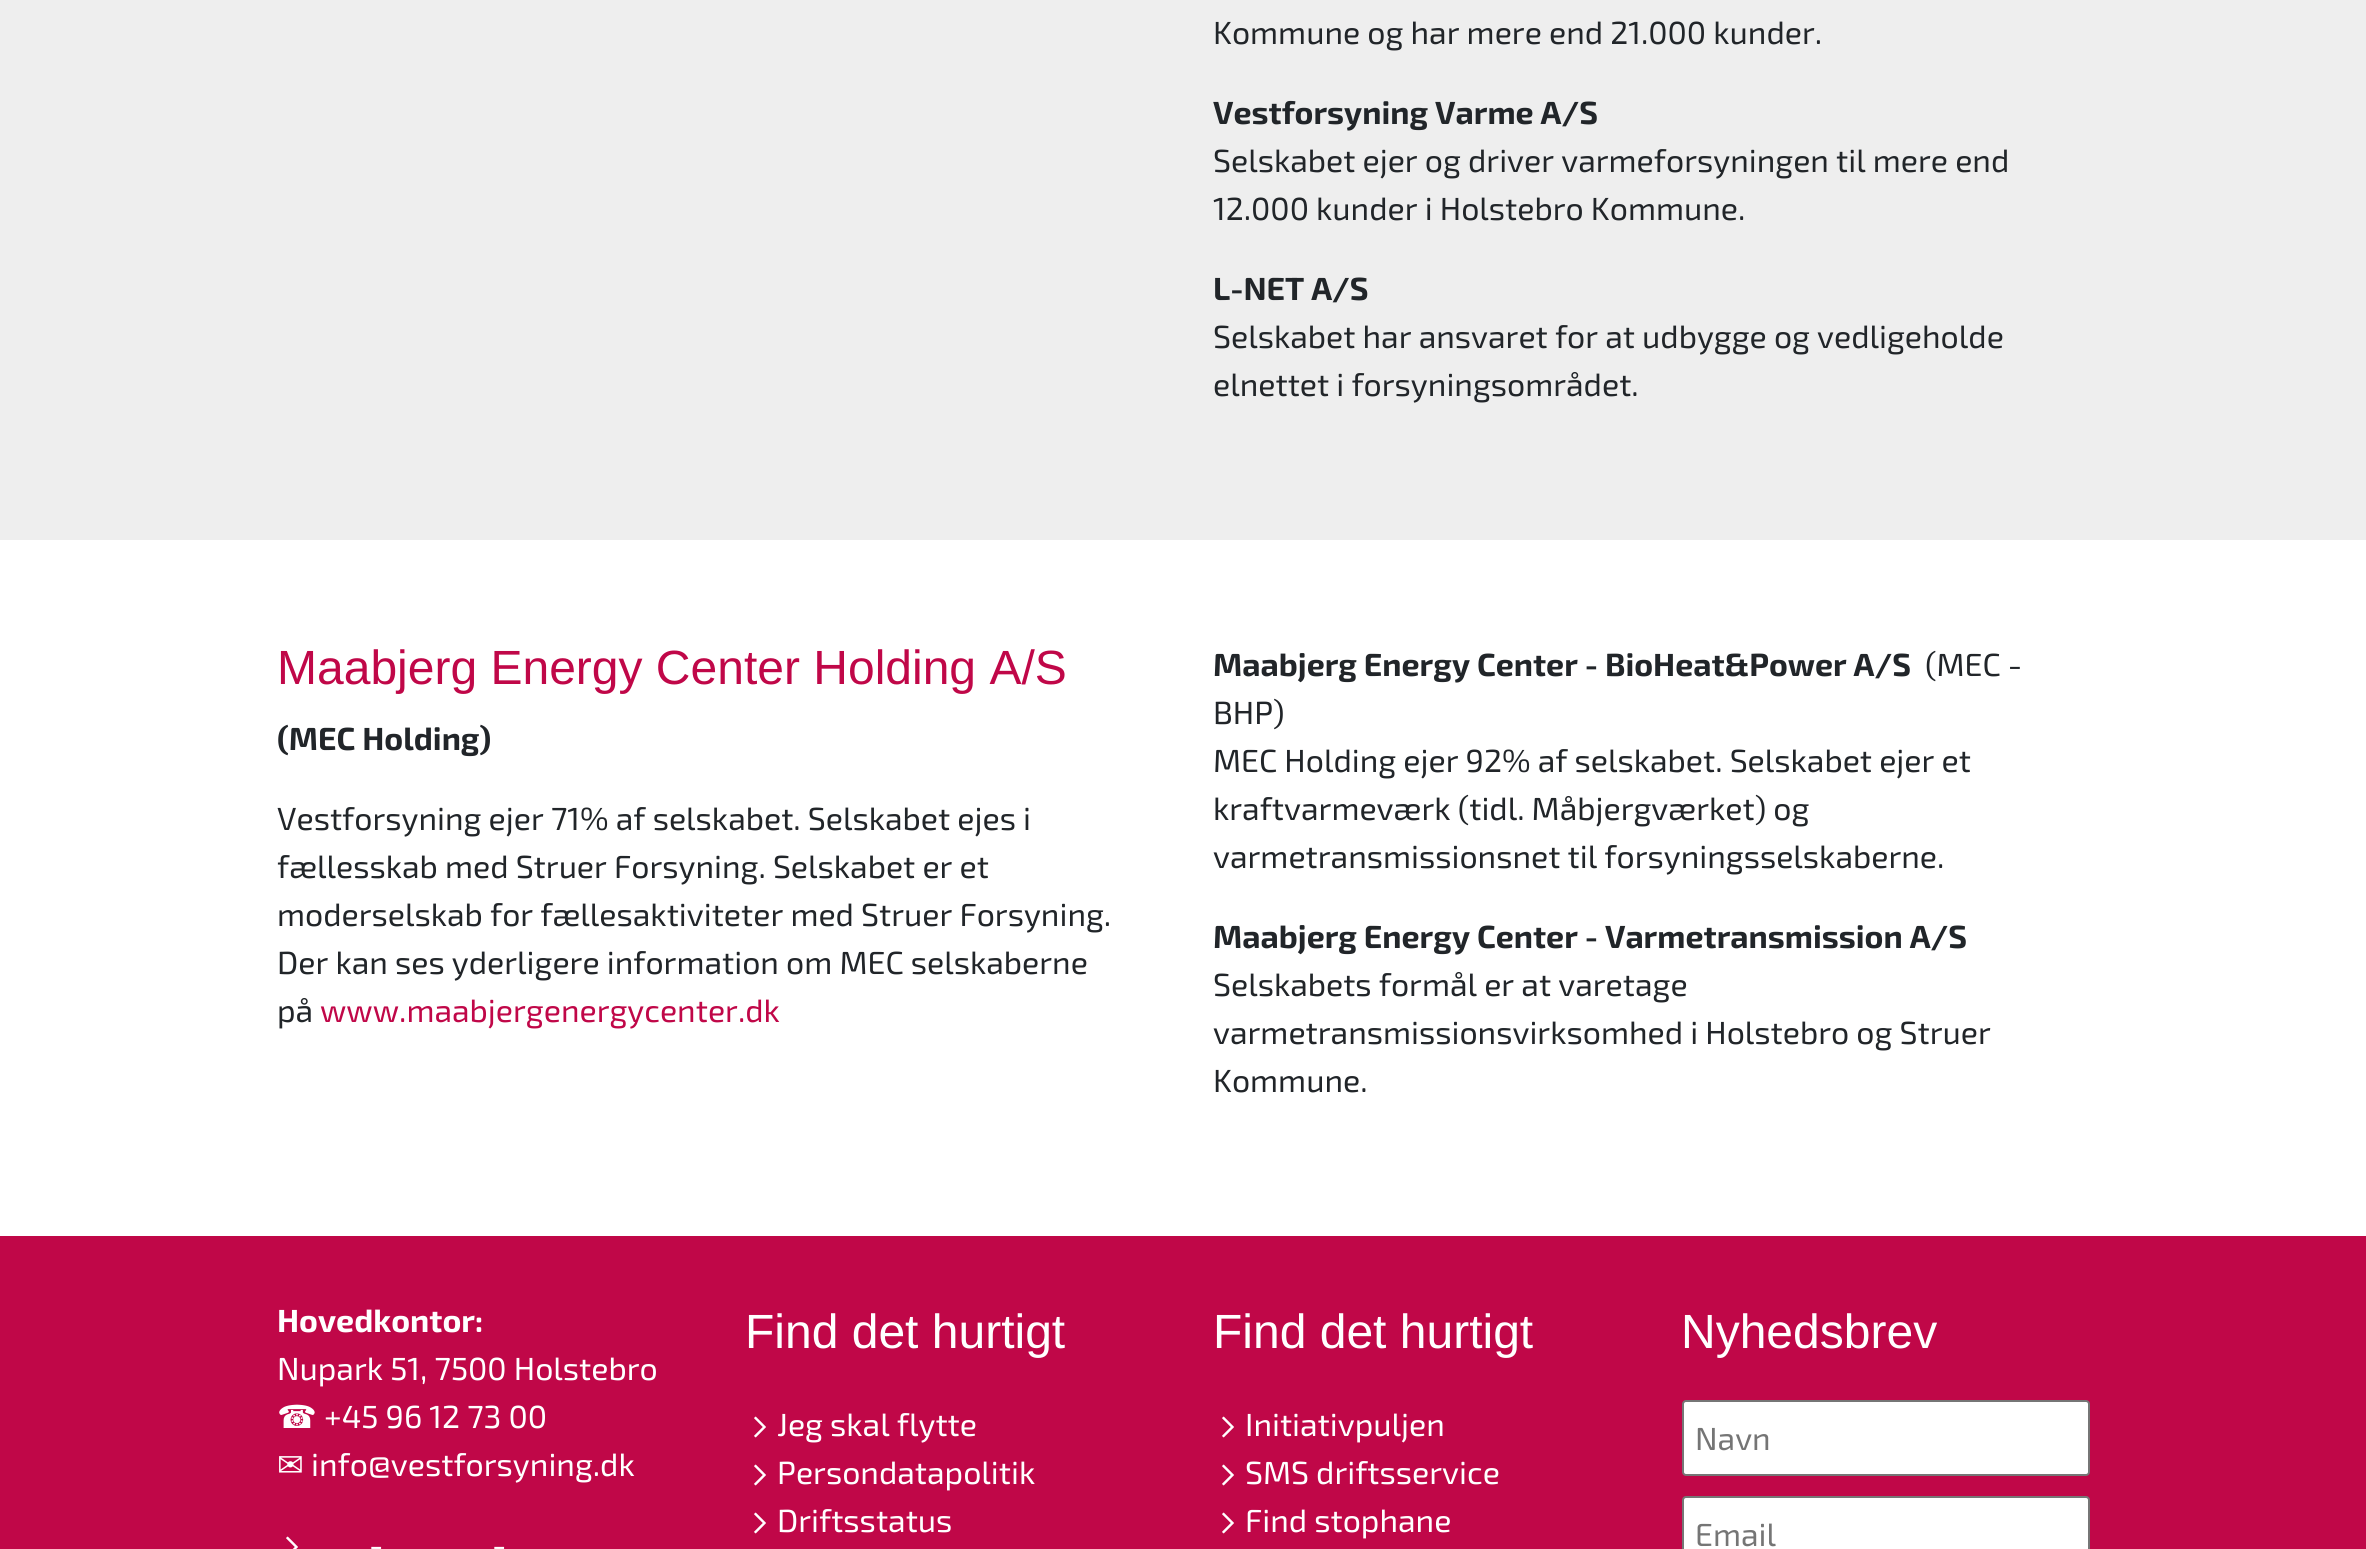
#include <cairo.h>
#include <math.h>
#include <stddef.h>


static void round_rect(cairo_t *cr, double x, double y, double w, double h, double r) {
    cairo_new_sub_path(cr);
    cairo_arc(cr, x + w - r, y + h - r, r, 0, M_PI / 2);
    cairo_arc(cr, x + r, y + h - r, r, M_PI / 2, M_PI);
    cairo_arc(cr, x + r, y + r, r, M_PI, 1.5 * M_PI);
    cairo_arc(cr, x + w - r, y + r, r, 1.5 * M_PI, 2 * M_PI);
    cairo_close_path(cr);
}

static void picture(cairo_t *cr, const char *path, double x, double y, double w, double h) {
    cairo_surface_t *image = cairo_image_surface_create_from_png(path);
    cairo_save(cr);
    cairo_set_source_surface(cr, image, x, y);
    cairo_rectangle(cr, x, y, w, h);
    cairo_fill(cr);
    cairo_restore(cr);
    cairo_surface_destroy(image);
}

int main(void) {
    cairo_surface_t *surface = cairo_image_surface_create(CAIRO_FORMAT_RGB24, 2366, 1549);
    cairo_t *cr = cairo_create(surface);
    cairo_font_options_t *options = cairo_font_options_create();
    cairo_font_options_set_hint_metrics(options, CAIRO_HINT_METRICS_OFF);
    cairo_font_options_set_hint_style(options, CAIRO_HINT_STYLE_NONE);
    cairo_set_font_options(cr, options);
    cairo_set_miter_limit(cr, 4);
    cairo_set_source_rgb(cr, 1, 1, 1);
    cairo_paint(cr);
    cairo_set_source_rgb(cr, 0.933, 0.933, 0.933);
    cairo_rectangle(cr, 0, 0, 2366, 540);
    cairo_fill(cr);
    cairo_select_font_face(cr, "Exo 2", CAIRO_FONT_SLANT_NORMAL, CAIRO_FONT_WEIGHT_NORMAL);
    cairo_set_font_size(cr, 32);
    cairo_set_source_rgb(cr, 0.129, 0.145, 0.161);
    cairo_move_to(cr, 1213, 44);
    cairo_show_text(cr, "Kommune og har mere end 21.000 kunder.");
    cairo_select_font_face(cr, "Exo 2", CAIRO_FONT_SLANT_NORMAL, CAIRO_FONT_WEIGHT_BOLD);
    cairo_move_to(cr, 1213, 124);
    cairo_show_text(cr, "Vestforsyning Varme A/S");
    cairo_select_font_face(cr, "Exo 2", CAIRO_FONT_SLANT_NORMAL, CAIRO_FONT_WEIGHT_NORMAL);
    cairo_move_to(cr, 1213, 172);
    cairo_show_text(cr, "Selskabet ejer og driver varmeforsyningen til mere end");
    cairo_move_to(cr, 1213, 220);
    cairo_show_text(cr, "12.000 kunder i Holstebro Kommune.");
    cairo_select_font_face(cr, "Exo 2", CAIRO_FONT_SLANT_NORMAL, CAIRO_FONT_WEIGHT_BOLD);
    cairo_move_to(cr, 1213, 300);
    cairo_show_text(cr, "L-NET A/S");
    cairo_select_font_face(cr, "Exo 2", CAIRO_FONT_SLANT_NORMAL, CAIRO_FONT_WEIGHT_NORMAL);
    cairo_move_to(cr, 1213, 348);
    cairo_show_text(cr, "Selskabet har ansvaret for at udbygge og vedligeholde");
    cairo_move_to(cr, 1213, 396);
    cairo_show_text(cr, "elnettet i forsyningsområdet.");
    cairo_select_font_face(cr, "Liberation Sans", CAIRO_FONT_SLANT_NORMAL, CAIRO_FONT_WEIGHT_NORMAL);
    cairo_set_font_size(cr, 48);
    cairo_set_source_rgb(cr, 0.753, 0.031, 0.282);
    cairo_move_to(cr, 277, 684);
    cairo_show_text(cr, "Maabjerg Energy Center Holding A/S");
    cairo_select_font_face(cr, "Exo 2", CAIRO_FONT_SLANT_NORMAL, CAIRO_FONT_WEIGHT_BOLD);
    cairo_set_font_size(cr, 32);
    cairo_set_source_rgb(cr, 0.129, 0.145, 0.161);
    cairo_move_to(cr, 277, 750);
    cairo_show_text(cr, "(MEC Holding)");
    cairo_select_font_face(cr, "Exo 2", CAIRO_FONT_SLANT_NORMAL, CAIRO_FONT_WEIGHT_NORMAL);
    cairo_move_to(cr, 277, 830);
    cairo_show_text(cr, "Vestforsyning ejer 71% af selskabet. Selskabet ejes i");
    cairo_move_to(cr, 277, 878);
    cairo_show_text(cr, "fællesskab med Struer Forsyning. Selskabet er et");
    cairo_move_to(cr, 277, 926);
    cairo_show_text(cr, "moderselskab for fællesaktiviteter med Struer Forsyning.");
    cairo_move_to(cr, 277, 974);
    cairo_show_text(cr, "Der kan ses yderligere information om MEC selskaberne");
    cairo_move_to(cr, 277, 1022);
    cairo_show_text(cr, "på");
    cairo_set_source_rgb(cr, 0.753, 0.031, 0.282);
    cairo_move_to(cr, 320, 1022);
    cairo_show_text(cr, "www.maabjergenergycenter.dk");
    cairo_select_font_face(cr, "Exo 2", CAIRO_FONT_SLANT_NORMAL, CAIRO_FONT_WEIGHT_BOLD);
    cairo_set_source_rgb(cr, 0.129, 0.145, 0.161);
    cairo_move_to(cr, 1213, 676);
    cairo_show_text(cr, "Maabjerg Energy Center - BioHeat&Power A/S");
    cairo_select_font_face(cr, "Exo 2", CAIRO_FONT_SLANT_NORMAL, CAIRO_FONT_WEIGHT_NORMAL);
    cairo_move_to(cr, 1925, 676);
    cairo_show_text(cr, "(MEC -");
    cairo_move_to(cr, 1213, 724);
    cairo_show_text(cr, "BHP)");
    cairo_move_to(cr, 1213, 772);
    cairo_show_text(cr, "MEC Holding ejer 92% af selskabet. Selskabet ejer et");
    cairo_move_to(cr, 1213, 820);
    cairo_show_text(cr, "kraftvarmeværk (tidl. Måbjergværket) og");
    cairo_move_to(cr, 1213, 868);
    cairo_show_text(cr, "varmetransmissionsnet til forsyningsselskaberne.");
    cairo_select_font_face(cr, "Exo 2", CAIRO_FONT_SLANT_NORMAL, CAIRO_FONT_WEIGHT_BOLD);
    cairo_move_to(cr, 1213, 948);
    cairo_show_text(cr, "Maabjerg Energy Center - Varmetransmission A/S");
    cairo_select_font_face(cr, "Exo 2", CAIRO_FONT_SLANT_NORMAL, CAIRO_FONT_WEIGHT_NORMAL);
    cairo_move_to(cr, 1213, 996);
    cairo_show_text(cr, "Selskabets formål er at varetage");
    cairo_move_to(cr, 1213, 1044);
    cairo_show_text(cr, "varmetransmissionsvirksomhed i Holstebro og Struer");
    cairo_move_to(cr, 1213, 1092);
    cairo_show_text(cr, "Kommune.");
    cairo_set_source_rgb(cr, 0.753, 0.031, 0.282);
    cairo_rectangle(cr, 0, 1236, 2366, 313);
    cairo_fill(cr);
    cairo_select_font_face(cr, "Exo 2", CAIRO_FONT_SLANT_NORMAL, CAIRO_FONT_WEIGHT_BOLD);
    cairo_set_source_rgb(cr, 1, 1, 1);
    cairo_move_to(cr, 277, 1332);
    cairo_show_text(cr, "Hovedkontor:");
    cairo_select_font_face(cr, "Exo 2", CAIRO_FONT_SLANT_NORMAL, CAIRO_FONT_WEIGHT_NORMAL);
    cairo_move_to(cr, 277, 1380);
    cairo_show_text(cr, "Nupark 51, 7500 Holstebro");
    cairo_select_font_face(cr, "DejaVu Sans", CAIRO_FONT_SLANT_NORMAL, CAIRO_FONT_WEIGHT_NORMAL);
    cairo_move_to(cr, 277, 1428);
    cairo_show_text(cr, "☎");
    cairo_select_font_face(cr, "Exo 2", CAIRO_FONT_SLANT_NORMAL, CAIRO_FONT_WEIGHT_NORMAL);
    cairo_move_to(cr, 324, 1428);
    cairo_show_text(cr, "+45 96 12 73 00");
    cairo_select_font_face(cr, "DejaVu Sans", CAIRO_FONT_SLANT_NORMAL, CAIRO_FONT_WEIGHT_NORMAL);
    cairo_move_to(cr, 277, 1476);
    cairo_show_text(cr, "✉");
    cairo_select_font_face(cr, "Exo 2", CAIRO_FONT_SLANT_NORMAL, CAIRO_FONT_WEIGHT_NORMAL);
    cairo_move_to(cr, 311, 1476);
    cairo_show_text(cr, "info@vestforsyning.dk");
    picture(cr, "img1.png", 286, 1536, 12, 13);
    cairo_move_to(cr, 369, 1556);
    cairo_show_text(cr, "-");
    cairo_move_to(cr, 492, 1556);
    cairo_show_text(cr, "-");
    cairo_select_font_face(cr, "Liberation Sans", CAIRO_FONT_SLANT_NORMAL, CAIRO_FONT_WEIGHT_NORMAL);
    cairo_set_font_size(cr, 48);
    cairo_move_to(cr, 745, 1348);
    cairo_show_text(cr, "Find det hurtigt");
    picture(cr, "img2.png", 754, 1416, 12, 22);
    cairo_select_font_face(cr, "Exo 2", CAIRO_FONT_SLANT_NORMAL, CAIRO_FONT_WEIGHT_NORMAL);
    cairo_set_font_size(cr, 32);
    cairo_move_to(cr, 777, 1436);
    cairo_show_text(cr, "Jeg skal flytte");
    picture(cr, "img2.png", 754, 1464, 12, 22);
    cairo_move_to(cr, 777, 1484);
    cairo_show_text(cr, "Persondatapolitik");
    picture(cr, "img2.png", 754, 1512, 12, 22);
    cairo_move_to(cr, 777, 1532);
    cairo_show_text(cr, "Driftsstatus");
    cairo_select_font_face(cr, "Liberation Sans", CAIRO_FONT_SLANT_NORMAL, CAIRO_FONT_WEIGHT_NORMAL);
    cairo_set_font_size(cr, 48);
    cairo_move_to(cr, 1213, 1348);
    cairo_show_text(cr, "Find det hurtigt");
    picture(cr, "img2.png", 1222, 1416, 12, 22);
    cairo_select_font_face(cr, "Exo 2", CAIRO_FONT_SLANT_NORMAL, CAIRO_FONT_WEIGHT_NORMAL);
    cairo_set_font_size(cr, 32);
    cairo_move_to(cr, 1245, 1436);
    cairo_show_text(cr, "Initiativpuljen");
    picture(cr, "img2.png", 1222, 1464, 12, 22);
    cairo_move_to(cr, 1245, 1484);
    cairo_show_text(cr, "SMS driftsservice");
    picture(cr, "img2.png", 1222, 1512, 12, 22);
    cairo_move_to(cr, 1245, 1532);
    cairo_show_text(cr, "Find stophane");
    cairo_select_font_face(cr, "Liberation Sans", CAIRO_FONT_SLANT_NORMAL, CAIRO_FONT_WEIGHT_NORMAL);
    cairo_set_font_size(cr, 48);
    cairo_move_to(cr, 1681, 1348);
    cairo_show_text(cr, "Nyhedsbrev");
    round_rect(cr, 1683, 1401, 406, 74, 3);
    cairo_fill_preserve(cr);
    cairo_set_source_rgb(cr, 0.463, 0.463, 0.463);
    cairo_stroke(cr);
    cairo_select_font_face(cr, "Exo 2", CAIRO_FONT_SLANT_NORMAL, CAIRO_FONT_WEIGHT_NORMAL);
    cairo_set_font_size(cr, 32);
    cairo_set_source_rgb(cr, 0.459, 0.459, 0.459);
    cairo_move_to(cr, 1695, 1450);
    cairo_show_text(cr, "Navn");
    cairo_set_source_rgb(cr, 1, 1, 1);
    round_rect(cr, 1683, 1497, 406, 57, 3);
    cairo_fill_preserve(cr);
    cairo_set_source_rgb(cr, 0.463, 0.463, 0.463);
    cairo_stroke(cr);
    cairo_set_source_rgb(cr, 0.459, 0.459, 0.459);
    cairo_move_to(cr, 1695, 1546);
    cairo_show_text(cr, "Email");
    cairo_surface_write_to_png(surface, "page.png");
    cairo_font_options_destroy(options);
    cairo_destroy(cr);
    cairo_surface_destroy(surface);
    return 0;
}
